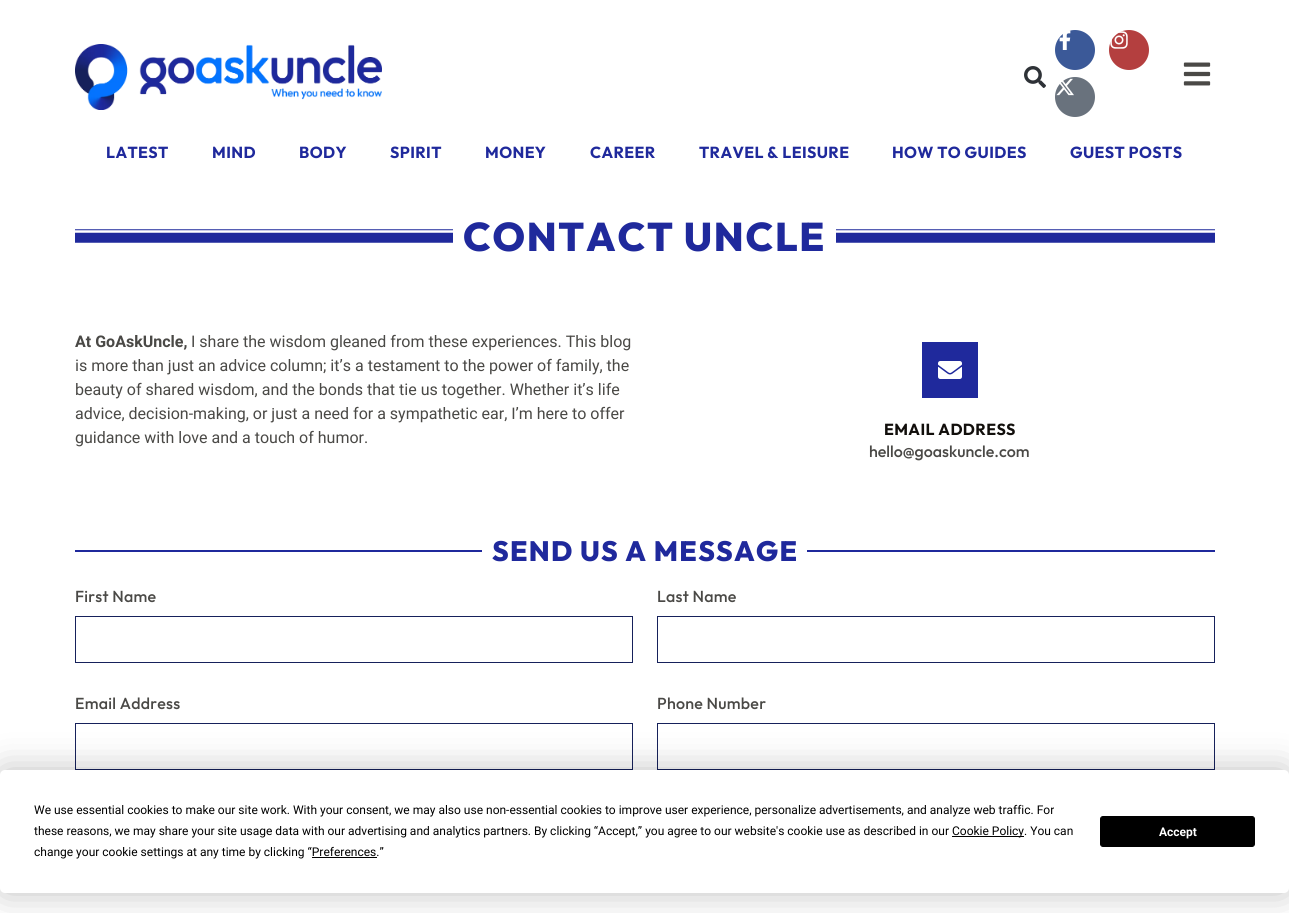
#include <cairo.h>
#include <math.h>
#include <stddef.h>


static void spaced_text(cairo_t *cr, double x, double y, const char *s, double letter, double word) {
    cairo_move_to(cr, x, y);
    while (*s) {
        char ch[5] = {0};
        int n = 0;
        do ch[n++] = *s++; while ((*s & 0xC0) == 0x80);
        cairo_show_text(cr, ch);
        cairo_rel_move_to(cr, letter + word * (*ch == ' '), 0);
    }
}

static void round_rect(cairo_t *cr, double x, double y, double w, double h, double r) {
    cairo_new_sub_path(cr);
    cairo_arc(cr, x + w - r, y + h - r, r, 0, M_PI / 2);
    cairo_arc(cr, x + r, y + h - r, r, M_PI / 2, M_PI);
    cairo_arc(cr, x + r, y + r, r, M_PI, 1.5 * M_PI);
    cairo_arc(cr, x + w - r, y + r, r, 1.5 * M_PI, 2 * M_PI);
    cairo_close_path(cr);
}

static void shadow(cairo_t *cr, double x, double y, double w, double h, double r, double blur, double alpha) {
    cairo_push_group_with_content(cr, CAIRO_CONTENT_ALPHA);
    cairo_set_operator(cr, CAIRO_OPERATOR_SOURCE);
    for (int i = 15; i >= -15 && fmin(w, h) + blur * i / 3 > 0; i -= 2) {
        double e = blur * i / 6;
        cairo_set_source_rgba(cr, 0, 0, 0, alpha * erfc((i - 1) / 8.5) / 2);
        round_rect(cr, x - e, y - e, w + 2 * e, h + 2 * e, fmax(0, fmin(r + e + blur * .6, fmin(w, h) / 2 + e)));
        cairo_fill(cr);
    }
    cairo_pattern_t *soft = cairo_pop_group(cr);
    cairo_mask(cr, soft);
    cairo_pattern_destroy(soft);
}

static void picture(cairo_t *cr, const char *path, double x, double y, double w, double h) {
    cairo_surface_t *image = cairo_image_surface_create_from_png(path);
    cairo_save(cr);
    cairo_set_source_surface(cr, image, x, y);
    cairo_rectangle(cr, x, y, w, h);
    cairo_fill(cr);
    cairo_restore(cr);
    cairo_surface_destroy(image);
}

int main(void) {
    cairo_surface_t *surface = cairo_image_surface_create(CAIRO_FORMAT_RGB24, 1289, 913);
    cairo_t *cr = cairo_create(surface);
    cairo_font_options_t *options = cairo_font_options_create();
    cairo_font_options_set_hint_metrics(options, CAIRO_HINT_METRICS_OFF);
    cairo_font_options_set_hint_style(options, CAIRO_HINT_STYLE_NONE);
    cairo_set_font_options(cr, options);
    cairo_set_miter_limit(cr, 4);
    cairo_set_source_rgb(cr, 1, 1, 1);
    cairo_paint(cr);
    picture(cr, "img1.png", 75, 44, 307, 66);
    picture(cr, "img2.png", 1024, 66, 22, 22);
    cairo_set_source_rgb(cr, 0.231, 0.349, 0.596);
    cairo_arc(cr, 1075, 50, 20, 0, 2 * M_PI);
    cairo_fill(cr);
    picture(cr, "img3.png", 1059, 30, 12, 20);
    cairo_set_source_rgb(cr, 0.706, 0.247, 0.247);
    cairo_arc(cr, 1129, 50, 20, 0, 2 * M_PI);
    cairo_fill(cr);
    picture(cr, "img4.png", 1110, 31, 18, 18);
    cairo_set_source_rgb(cr, 0.412, 0.447, 0.49);
    cairo_arc(cr, 1075, 97, 20, 0, 2 * M_PI);
    cairo_fill(cr);
    picture(cr, "img5.png", 1056, 78, 18, 18);
    picture(cr, "img6.png", 1183, 62, 28, 24);
    cairo_select_font_face(cr, "Outfit", CAIRO_FONT_SLANT_NORMAL, CAIRO_FONT_WEIGHT_BOLD);
    cairo_set_font_size(cr, 16);
    cairo_set_source_rgb(cr, 0.122, 0.161, 0.612);
    spaced_text(cr, 106, 158, "LATEST", 0.4, 0);
    spaced_text(cr, 212, 158, "MIND", 0.4, 0);
    spaced_text(cr, 299, 158, "BODY", 0.4, 0);
    spaced_text(cr, 390, 158, "SPIRIT", 0.4, 0);
    spaced_text(cr, 485, 158, "MONEY", 0.4, 0);
    spaced_text(cr, 590, 158, "CAREER", 0.4, 0);
    spaced_text(cr, 699, 158, "TRAVEL & LEISURE", 0.4, 0);
    spaced_text(cr, 892, 158, "HOW TO GUIDES", 0.4, 0);
    spaced_text(cr, 1070, 158, "GUEST POSTS", 0.4, 0);
    picture(cr, "img7.png", 75, 229, 378, 14);
    cairo_select_font_face(cr, "Outfit ExtraBold", CAIRO_FONT_SLANT_NORMAL, CAIRO_FONT_WEIGHT_NORMAL);
    cairo_set_font_size(cr, 40);
    spaced_text(cr, 463, 251, "CONTACT UNCLE", 1.75, 0);
    picture(cr, "img8.png", 836, 229, 379, 14);
    cairo_select_font_face(cr, "Heebo", CAIRO_FONT_SLANT_NORMAL, CAIRO_FONT_WEIGHT_BOLD);
    cairo_set_font_size(cr, 16);
    cairo_set_source_rgb(cr, 0.29, 0.286, 0.275);
    cairo_move_to(cr, 75, 347);
    cairo_show_text(cr, "At GoAskUncle,");
    cairo_select_font_face(cr, "Heebo", CAIRO_FONT_SLANT_NORMAL, CAIRO_FONT_WEIGHT_NORMAL);
    cairo_move_to(cr, 191, 347);
    cairo_show_text(cr, "I share the wisdom gleaned from these experiences. This blog");
    cairo_move_to(cr, 75, 371);
    cairo_show_text(cr, "is more than just an advice column; it’s a testament to the power of family, the");
    cairo_move_to(cr, 75, 395);
    cairo_show_text(cr, "beauty of shared wisdom, and the bonds that tie us together. Whether it’s life");
    cairo_move_to(cr, 75, 419);
    cairo_show_text(cr, "advice, decision-making, or just a need for a sympathetic ear, I’m here to offer");
    cairo_move_to(cr, 75, 443);
    cairo_show_text(cr, "guidance with love and a touch of humor.");
    cairo_set_source_rgb(cr, 0.122, 0.161, 0.612);
    cairo_rectangle(cr, 922, 342, 56, 56);
    cairo_fill(cr);
    picture(cr, "img9.png", 938, 361, 24, 18);
    cairo_select_font_face(cr, "Outfit", CAIRO_FONT_SLANT_NORMAL, CAIRO_FONT_WEIGHT_BOLD);
    cairo_set_source_rgb(cr, 0.071, 0.059, 0.047);
    spaced_text(cr, 884, 435, "EMAIL ADDRESS", 0.4, 0);
    cairo_select_font_face(cr, "Outfit Medium", CAIRO_FONT_SLANT_NORMAL, CAIRO_FONT_WEIGHT_NORMAL);
    cairo_set_source_rgb(cr, 0.29, 0.286, 0.275);
    cairo_move_to(cr, 869, 457);
    cairo_show_text(cr, "hello@goaskuncle.com");
    cairo_set_source_rgb(cr, 0.122, 0.161, 0.612);
    cairo_rectangle(cr, 75, 550, 407, 2);
    cairo_fill(cr);
    cairo_select_font_face(cr, "Outfit ExtraBold", CAIRO_FONT_SLANT_NORMAL, CAIRO_FONT_WEIGHT_NORMAL);
    cairo_set_font_size(cr, 28);
    spaced_text(cr, 492, 561, "SEND US A MESSAGE", 1.25, 0);
    cairo_rectangle(cr, 807, 550, 408, 2);
    cairo_fill(cr);
    cairo_select_font_face(cr, "Outfit Medium", CAIRO_FONT_SLANT_NORMAL, CAIRO_FONT_WEIGHT_NORMAL);
    cairo_set_font_size(cr, 16);
    cairo_set_source_rgb(cr, 0.29, 0.286, 0.275);
    spaced_text(cr, 75, 602, "First Name", 0.25, 0);
    cairo_rectangle(cr, 75.5, 616.5, 557, 46);
    cairo_set_source_rgb(cr, 0.086, 0.129, 0.357);
    cairo_set_line_width(cr, 1);
    cairo_stroke(cr);
    cairo_set_source_rgb(cr, 0.29, 0.286, 0.275);
    spaced_text(cr, 657, 602, "Last Name", 0.25, 0);
    cairo_rectangle(cr, 657.5, 616.5, 557, 46);
    cairo_set_source_rgb(cr, 0.086, 0.129, 0.357);
    cairo_stroke(cr);
    cairo_set_source_rgb(cr, 0.29, 0.286, 0.275);
    spaced_text(cr, 75, 709, "Email Address", 0.25, 0);
    cairo_rectangle(cr, 75.5, 723.5, 557, 46);
    cairo_set_source_rgb(cr, 0.086, 0.129, 0.357);
    cairo_stroke(cr);
    cairo_set_source_rgb(cr, 0.29, 0.286, 0.275);
    spaced_text(cr, 657, 709, "Phone Number", 0.25, 0);
    cairo_rectangle(cr, 657.5, 723.5, 557, 46);
    cairo_set_source_rgb(cr, 0.086, 0.129, 0.357);
    cairo_stroke(cr);
    cairo_set_source_rgb(cr, 0, 0, 0);
    shadow(cr, 0, 770, 1289, 123, 5, 17.5, 0.25);
    cairo_set_source_rgb(cr, 1, 1, 1);
    round_rect(cr, 0, 770, 1289, 123, 5);
    cairo_fill(cr);
    cairo_select_font_face(cr, "Roboto", CAIRO_FONT_SLANT_NORMAL, CAIRO_FONT_WEIGHT_NORMAL);
    cairo_set_font_size(cr, 12);
    cairo_set_source_rgb(cr, 0, 0, 0);
    cairo_move_to(cr, 34, 814);
    cairo_show_text(cr, "We use essential cookies to make our site work. With your consent, we may also use non-essential cookies to improve user experience, personalize advertisements, and analyze web traffic. For");
    cairo_move_to(cr, 34, 835);
    cairo_show_text(cr, "these reasons, we may share your site usage data with our advertising and analytics partners. By clicking “Accept,” you agree to our website's cookie use as described in our");
    cairo_rectangle(cr, 952, 836, 72, 1);
    cairo_fill(cr);
    cairo_move_to(cr, 952, 835);
    cairo_show_text(cr, "Cookie Policy. You can");
    cairo_move_to(cr, 34, 856);
    cairo_show_text(cr, "change your cookie settings at any time by clicking “Preferences.”");
    cairo_rectangle(cr, 312, 857, 65, 1);
    cairo_fill(cr);
    round_rect(cr, 1100.5, 816.5, 154, 30, 2.5);
    cairo_fill_preserve(cr);
    cairo_stroke(cr);
    cairo_select_font_face(cr, "Roboto", CAIRO_FONT_SLANT_NORMAL, CAIRO_FONT_WEIGHT_BOLD);
    cairo_set_source_rgb(cr, 1, 1, 1);
    cairo_move_to(cr, 1159, 836);
    cairo_show_text(cr, "Accept");
    cairo_surface_write_to_png(surface, "page.png");
    cairo_font_options_destroy(options);
    cairo_destroy(cr);
    cairo_surface_destroy(surface);
    return 0;
}
